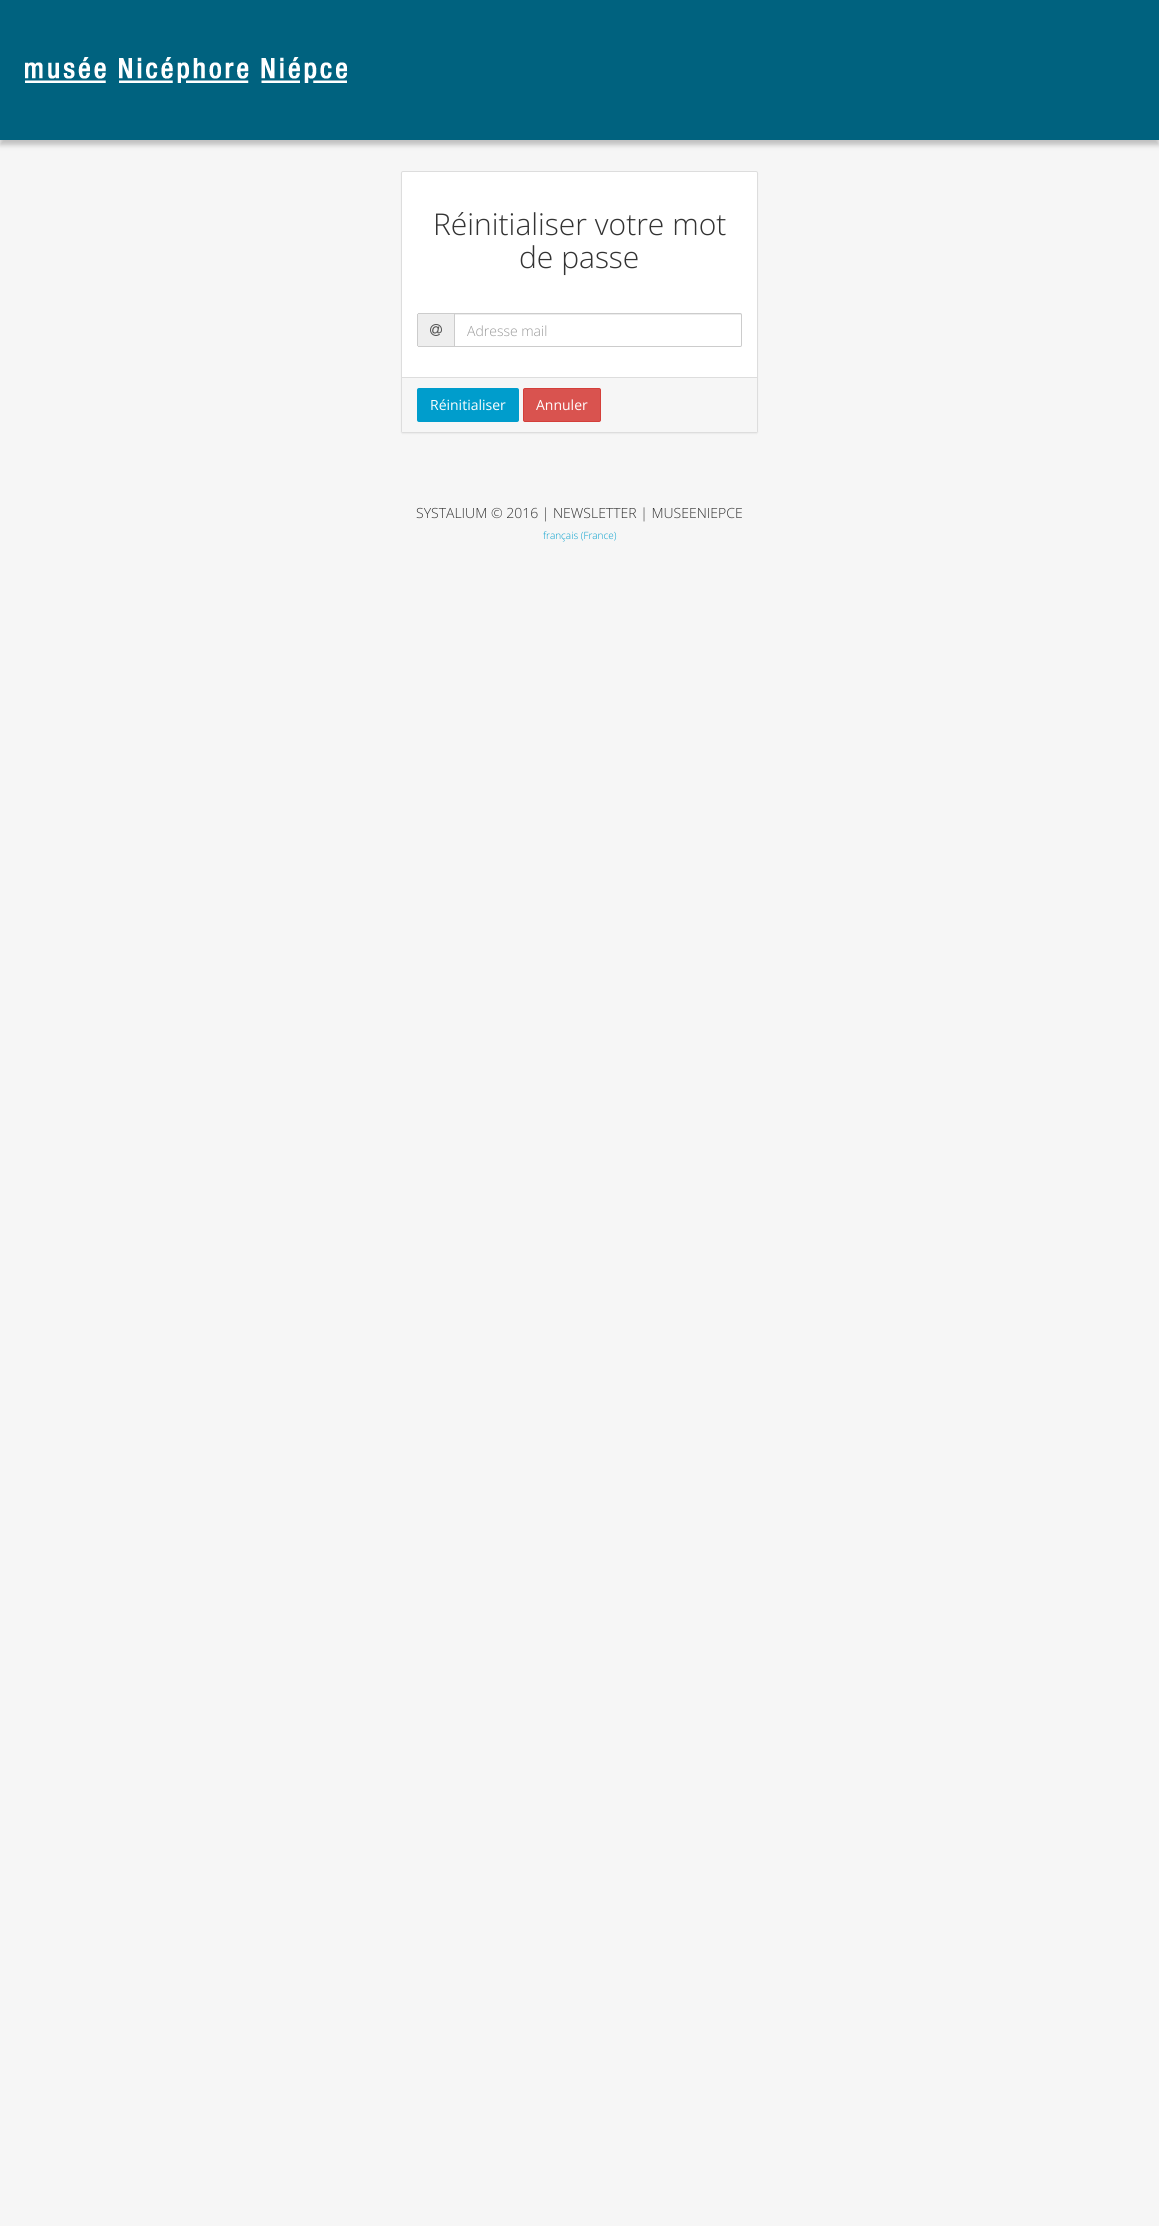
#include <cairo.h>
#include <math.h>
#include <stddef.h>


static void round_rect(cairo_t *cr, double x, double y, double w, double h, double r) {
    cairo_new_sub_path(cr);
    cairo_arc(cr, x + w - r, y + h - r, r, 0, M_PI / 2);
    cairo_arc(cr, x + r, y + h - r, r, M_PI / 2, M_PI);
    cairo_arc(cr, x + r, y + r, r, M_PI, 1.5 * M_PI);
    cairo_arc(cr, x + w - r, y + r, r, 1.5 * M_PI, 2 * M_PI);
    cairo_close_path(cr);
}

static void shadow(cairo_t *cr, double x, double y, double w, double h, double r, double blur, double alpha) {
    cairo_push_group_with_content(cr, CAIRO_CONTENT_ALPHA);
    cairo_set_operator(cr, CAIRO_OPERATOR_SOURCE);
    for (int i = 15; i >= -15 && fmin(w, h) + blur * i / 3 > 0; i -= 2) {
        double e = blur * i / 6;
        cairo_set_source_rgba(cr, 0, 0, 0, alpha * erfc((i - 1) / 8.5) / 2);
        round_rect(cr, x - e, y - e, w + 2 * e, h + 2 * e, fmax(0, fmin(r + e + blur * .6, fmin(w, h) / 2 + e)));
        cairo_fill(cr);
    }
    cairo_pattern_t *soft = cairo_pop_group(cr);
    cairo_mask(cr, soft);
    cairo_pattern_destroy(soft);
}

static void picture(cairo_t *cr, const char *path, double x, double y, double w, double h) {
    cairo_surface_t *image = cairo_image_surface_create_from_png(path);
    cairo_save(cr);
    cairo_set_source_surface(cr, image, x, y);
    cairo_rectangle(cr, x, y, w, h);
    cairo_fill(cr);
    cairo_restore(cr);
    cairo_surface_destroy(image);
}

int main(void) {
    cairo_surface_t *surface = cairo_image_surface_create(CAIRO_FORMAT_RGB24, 1159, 2226);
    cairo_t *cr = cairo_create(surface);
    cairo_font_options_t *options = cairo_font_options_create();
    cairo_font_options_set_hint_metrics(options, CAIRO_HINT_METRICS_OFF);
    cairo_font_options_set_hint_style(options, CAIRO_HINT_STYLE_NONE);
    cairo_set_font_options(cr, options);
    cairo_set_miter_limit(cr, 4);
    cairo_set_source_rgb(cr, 0.961, 0.961, 0.961);
    cairo_paint(cr);
    cairo_set_source_rgb(cr, 0.753, 0.753, 0.753);
    shadow(cr, 0, 5, 1159, 140, 0, 2.5, 1);
    cairo_set_source_rgb(cr, 0, 0.384, 0.498);
    cairo_rectangle(cr, 0, 0, 1159, 140);
    cairo_fill(cr);
    picture(cr, "img1.png", 25, 57, 322, 26);
    cairo_set_source_rgb(cr, 0, 0, 0);
    shadow(cr, 401, 172, 357, 262, 2, 0.5, 0.05);
    cairo_set_source_rgb(cr, 1, 1, 1);
    round_rect(cr, 401.5, 171.5, 356, 261, 1.5);
    cairo_fill_preserve(cr);
    cairo_set_source_rgb(cr, 0.867, 0.867, 0.867);
    cairo_set_line_width(cr, 1);
    cairo_stroke(cr);
    cairo_select_font_face(cr, "Open Sans Light", CAIRO_FONT_SLANT_NORMAL, CAIRO_FONT_WEIGHT_NORMAL);
    cairo_set_font_size(cr, 30);
    cairo_set_source_rgb(cr, 0.2, 0.2, 0.2);
    cairo_move_to(cr, 433, 235);
    cairo_show_text(cr, "Réinitialiser votre mot");
    cairo_move_to(cr, 519, 268);
    cairo_show_text(cr, "de passe");
    cairo_set_source_rgb(cr, 0.933, 0.933, 0.933);
    cairo_new_path(cr);
    cairo_move_to(cr, 419, 313);
    cairo_line_to(cr, 454, 313);
    cairo_line_to(cr, 454, 347);
    cairo_line_to(cr, 419, 347);
    cairo_curve_to(cr, 418, 347, 417, 346, 417, 345);
    cairo_line_to(cr, 417, 315);
    cairo_curve_to(cr, 417, 314, 418, 313, 419, 313);
    cairo_close_path(cr);
    cairo_fill(cr);
    cairo_set_source_rgb(cr, 0.8, 0.8, 0.8);
    cairo_rectangle(cr, 418, 313, 36, 1);
    cairo_fill(cr);
    cairo_rectangle(cr, 418, 346, 36, 1);
    cairo_fill(cr);
    cairo_rectangle(cr, 417, 314, 1, 32);
    cairo_fill(cr);
    picture(cr, "img2.png", 430, 324, 12, 12);
    cairo_set_source_rgb(cr, 0.925, 0.925, 0.925);
    cairo_new_path(cr);
    cairo_move_to(cr, 455, 315);
    cairo_line_to(cr, 740, 315);
    cairo_curve_to(cr, 741, 315, 741, 315, 741, 316);
    cairo_line_to(cr, 741, 314);
    cairo_line_to(cr, 740, 314);
    cairo_line_to(cr, 455, 314);
    cairo_close_path(cr);
    cairo_fill(cr);
    cairo_new_path(cr);
    cairo_move_to(cr, 454.5, 313.5);
    cairo_line_to(cr, 740, 313.5);
    cairo_curve_to(cr, 741, 313.5, 741.5, 314, 741.5, 315);
    cairo_line_to(cr, 741.5, 345);
    cairo_curve_to(cr, 741.5, 346, 741, 346.5, 740, 346.5);
    cairo_line_to(cr, 454.5, 346.5);
    cairo_close_path(cr);
    cairo_set_source_rgb(cr, 0.8, 0.8, 0.8);
    cairo_stroke(cr);
    cairo_set_font_size(cr, 14);
    cairo_set_source_rgb(cr, 0.6, 0.6, 0.6);
    cairo_move_to(cr, 467, 336);
    cairo_show_text(cr, "Adresse mail");
    cairo_set_source_rgb(cr, 0.961, 0.961, 0.961);
    cairo_new_path(cr);
    cairo_move_to(cr, 402, 377);
    cairo_line_to(cr, 757, 377);
    cairo_line_to(cr, 757, 431);
    cairo_curve_to(cr, 757, 431.5, 756.5, 432, 756, 432);
    cairo_line_to(cr, 403, 432);
    cairo_curve_to(cr, 402.5, 432, 402, 431.5, 402, 431);
    cairo_close_path(cr);
    cairo_fill(cr);
    cairo_set_source_rgb(cr, 0.867, 0.867, 0.867);
    cairo_rectangle(cr, 402, 377, 355, 1);
    cairo_fill(cr);
    cairo_set_source_rgb(cr, 0, 0.616, 0.8);
    round_rect(cr, 417, 388, 102, 34, 2);
    cairo_fill(cr);
    cairo_select_font_face(cr, "Open Sans", CAIRO_FONT_SLANT_NORMAL, CAIRO_FONT_WEIGHT_NORMAL);
    cairo_set_source_rgb(cr, 1, 1, 1);
    cairo_move_to(cr, 430, 410);
    cairo_show_text(cr, "Réinitialiser");
    cairo_set_source_rgb(cr, 0.851, 0.325, 0.31);
    round_rect(cr, 523.5, 388.5, 77, 33, 1.5);
    cairo_fill_preserve(cr);
    cairo_set_source_rgb(cr, 0.831, 0.247, 0.227);
    cairo_stroke(cr);
    cairo_set_source_rgb(cr, 1, 1, 1);
    cairo_move_to(cr, 536, 410);
    cairo_show_text(cr, "Annuler");
    cairo_select_font_face(cr, "Open Sans Light", CAIRO_FONT_SLANT_NORMAL, CAIRO_FONT_WEIGHT_NORMAL);
    cairo_set_source_rgb(cr, 0.2, 0.2, 0.2);
    cairo_move_to(cr, 416, 518);
    cairo_show_text(cr, "SYSTALIUM © 2016 | NEWSLETTER | MUSEENIEPCE");
    cairo_set_font_size(cr, 10);
    cairo_set_source_rgb(cr, 0, 0.616, 0.8);
    cairo_move_to(cr, 543, 539);
    cairo_show_text(cr, "français (France)");
    cairo_surface_write_to_png(surface, "page.png");
    cairo_font_options_destroy(options);
    cairo_destroy(cr);
    cairo_surface_destroy(surface);
    return 0;
}
